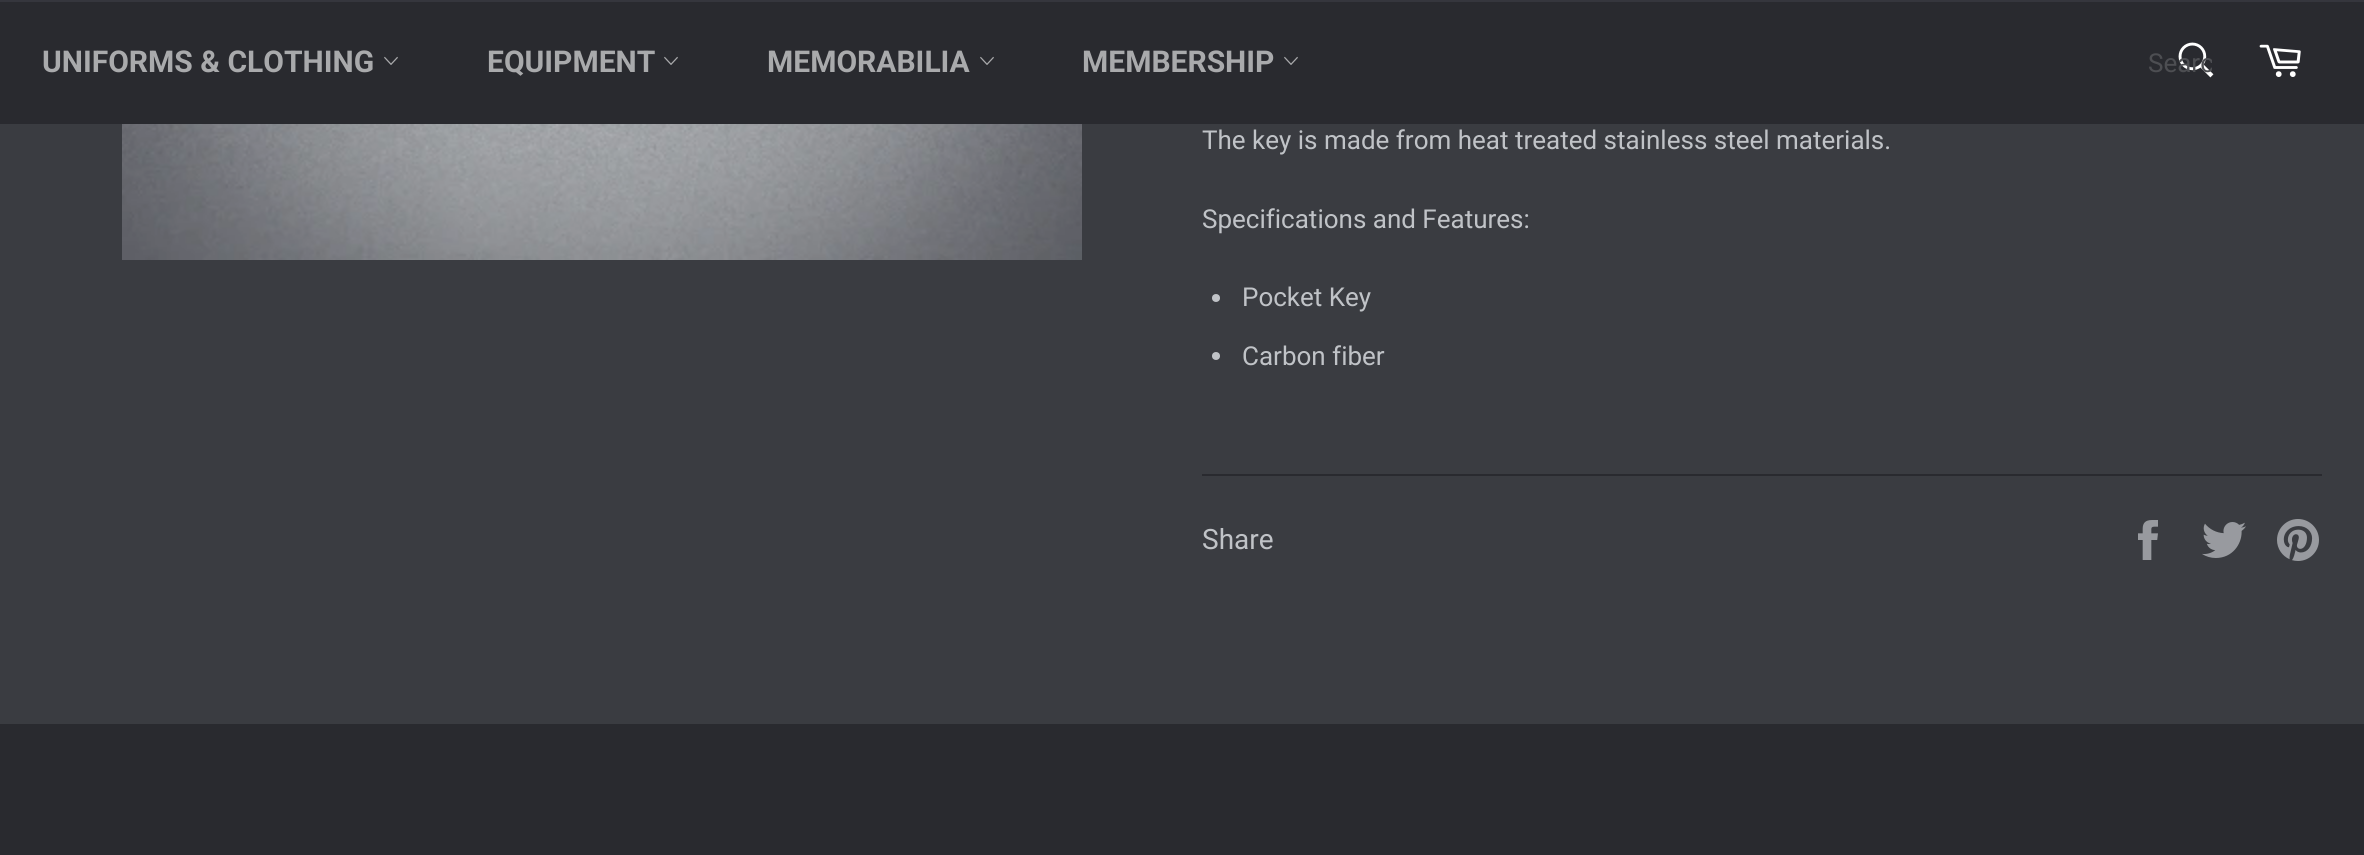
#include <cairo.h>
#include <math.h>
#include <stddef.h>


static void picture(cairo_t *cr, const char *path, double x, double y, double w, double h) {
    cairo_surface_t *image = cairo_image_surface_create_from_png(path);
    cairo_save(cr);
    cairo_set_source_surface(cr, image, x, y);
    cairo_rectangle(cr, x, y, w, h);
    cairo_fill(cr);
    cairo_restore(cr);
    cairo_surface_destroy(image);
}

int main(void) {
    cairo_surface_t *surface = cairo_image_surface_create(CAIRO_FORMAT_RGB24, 2364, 855);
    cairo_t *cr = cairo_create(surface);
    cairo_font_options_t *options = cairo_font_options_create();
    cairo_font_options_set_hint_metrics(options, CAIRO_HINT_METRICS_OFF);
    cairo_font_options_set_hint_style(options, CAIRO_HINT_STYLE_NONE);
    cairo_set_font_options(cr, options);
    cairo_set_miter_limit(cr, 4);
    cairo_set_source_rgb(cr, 0.227, 0.235, 0.255);
    cairo_paint(cr);
    cairo_set_source_rgb(cr, 0.161, 0.165, 0.184);
    cairo_rectangle(cr, 0, 2, 2364, 122);
    cairo_fill(cr);
    cairo_set_source_rgb(cr, 0.208, 0.212, 0.239);
    cairo_rectangle(cr, 0, 0, 2364, 2);
    cairo_fill(cr);
    cairo_select_font_face(cr, "Roboto", CAIRO_FONT_SLANT_NORMAL, CAIRO_FONT_WEIGHT_BOLD);
    cairo_set_font_size(cr, 30);
    cairo_set_source_rgb(cr, 0.663, 0.667, 0.675);
    cairo_move_to(cr, 42, 72);
    cairo_show_text(cr, "UNIFORMS & CLOTHING");
    picture(cr, "img1.png", 384, 56, 14, 9);
    cairo_move_to(cr, 487, 72);
    cairo_show_text(cr, "EQUIPMENT");
    picture(cr, "img1.png", 664, 56, 14, 9);
    cairo_move_to(cr, 767, 72);
    cairo_show_text(cr, "MEMORABILIA");
    picture(cr, "img1.png", 980, 56, 14, 9);
    cairo_move_to(cr, 1082, 72);
    cairo_show_text(cr, "MEMBERSHIP");
    picture(cr, "img1.png", 1284, 56, 14, 9);
    picture(cr, "img2.png", 2178, 42, 36, 36);
    cairo_save(cr);
    cairo_rectangle(cr, 2148, 48, 64, 30);
    cairo_clip(cr);
    cairo_select_font_face(cr, "Roboto", CAIRO_FONT_SLANT_NORMAL, CAIRO_FONT_WEIGHT_NORMAL);
    cairo_set_font_size(cr, 26);
    cairo_set_source_rgb(cr, 0.302, 0.306, 0.322);
    cairo_move_to(cr, 2148, 72);
    cairo_show_text(cr, "Searc");
    cairo_restore(cr);
    picture(cr, "img3.png", 2259, 44, 42, 33);
    picture(cr, "img4.png", 122, 124, 960, 136);
    cairo_select_font_face(cr, "Roboto", CAIRO_FONT_SLANT_NORMAL, CAIRO_FONT_WEIGHT_NORMAL);
    cairo_set_font_size(cr, 26);
    cairo_set_source_rgb(cr, 0.753, 0.765, 0.78);
    cairo_move_to(cr, 1202, 149);
    cairo_show_text(cr, "The key is made from heat treated stainless steel materials.");
    cairo_move_to(cr, 1202, 228);
    cairo_show_text(cr, "Specifications and Features:");
    cairo_new_path(cr);
    cairo_arc(cr, 1216, 298, 4, 0, 2 * M_PI);
    cairo_fill(cr);
    cairo_move_to(cr, 1242, 306);
    cairo_show_text(cr, "Pocket Key");
    cairo_new_path(cr);
    cairo_arc(cr, 1216, 356, 4, 0, 2 * M_PI);
    cairo_fill(cr);
    cairo_move_to(cr, 1242, 365);
    cairo_show_text(cr, "Carbon fiber");
    cairo_set_source_rgb(cr, 0.161, 0.165, 0.184);
    cairo_rectangle(cr, 1202, 474, 1120, 2);
    cairo_fill(cr);
    cairo_set_font_size(cr, 28);
    cairo_set_source_rgb(cr, 0.753, 0.765, 0.78);
    cairo_move_to(cr, 1202, 549);
    cairo_show_text(cr, "Share");
    picture(cr, "img5.png", 2138, 520, 20, 40);
    picture(cr, "img6.png", 2202, 522, 44, 36);
    picture(cr, "img7.png", 2277, 519, 42, 42);
    cairo_set_source_rgb(cr, 0.161, 0.165, 0.184);
    cairo_rectangle(cr, 0, 724, 2364, 131);
    cairo_fill(cr);
    cairo_surface_write_to_png(surface, "page.png");
    cairo_font_options_destroy(options);
    cairo_destroy(cr);
    cairo_surface_destroy(surface);
    return 0;
}
